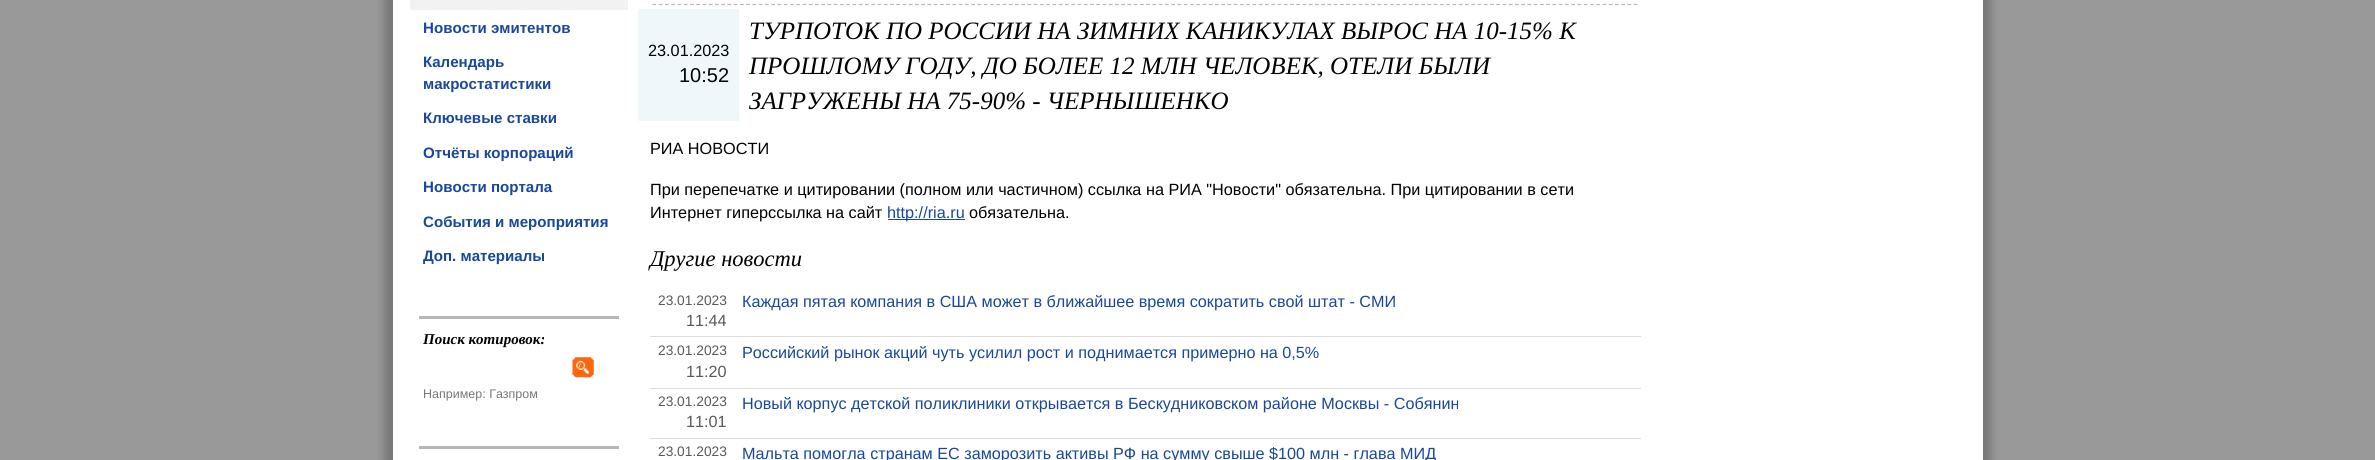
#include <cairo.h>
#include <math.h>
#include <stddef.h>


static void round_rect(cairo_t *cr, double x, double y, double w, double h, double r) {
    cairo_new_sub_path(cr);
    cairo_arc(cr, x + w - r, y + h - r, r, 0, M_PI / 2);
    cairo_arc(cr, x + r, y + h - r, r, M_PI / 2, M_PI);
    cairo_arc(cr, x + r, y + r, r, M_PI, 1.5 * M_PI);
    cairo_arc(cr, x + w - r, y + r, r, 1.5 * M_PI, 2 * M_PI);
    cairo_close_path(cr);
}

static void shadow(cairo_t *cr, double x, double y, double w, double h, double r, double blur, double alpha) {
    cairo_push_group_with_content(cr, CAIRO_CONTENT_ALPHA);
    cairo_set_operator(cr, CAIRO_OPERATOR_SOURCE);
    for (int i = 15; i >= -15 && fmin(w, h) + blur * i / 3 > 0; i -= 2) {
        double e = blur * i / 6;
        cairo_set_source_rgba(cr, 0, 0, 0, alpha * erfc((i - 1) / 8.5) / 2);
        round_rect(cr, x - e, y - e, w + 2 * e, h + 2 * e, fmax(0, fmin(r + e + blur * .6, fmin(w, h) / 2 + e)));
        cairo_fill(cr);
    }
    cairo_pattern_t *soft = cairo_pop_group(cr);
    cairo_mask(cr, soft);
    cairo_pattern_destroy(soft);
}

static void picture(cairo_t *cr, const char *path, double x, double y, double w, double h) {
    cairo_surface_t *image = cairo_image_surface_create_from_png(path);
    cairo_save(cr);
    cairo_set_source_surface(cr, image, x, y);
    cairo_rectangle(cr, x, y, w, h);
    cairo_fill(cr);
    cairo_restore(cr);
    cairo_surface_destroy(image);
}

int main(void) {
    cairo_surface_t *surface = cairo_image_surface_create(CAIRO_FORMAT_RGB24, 2375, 460);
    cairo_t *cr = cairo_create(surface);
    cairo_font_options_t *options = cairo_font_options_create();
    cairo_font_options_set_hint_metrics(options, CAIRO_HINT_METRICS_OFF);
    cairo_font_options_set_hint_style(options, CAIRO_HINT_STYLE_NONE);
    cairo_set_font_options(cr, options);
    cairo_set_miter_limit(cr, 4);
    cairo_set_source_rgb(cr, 0.6, 0.6, 0.6);
    cairo_paint(cr);
    cairo_set_source_rgb(cr, 0.467, 0.467, 0.467);
    shadow(cr, 384, -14, 1607, 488, 0, 4.5, 1);
    cairo_set_source_rgb(cr, 1, 1, 1);
    cairo_rectangle(cr, 393, 0, 1590, 460);
    cairo_fill(cr);
    cairo_set_source_rgb(cr, 0.949, 0.949, 0.949);
    cairo_rectangle(cr, 410, 0, 218, 10);
    cairo_fill(cr);
    cairo_select_font_face(cr, "Liberation Sans", CAIRO_FONT_SLANT_NORMAL, CAIRO_FONT_WEIGHT_BOLD);
    cairo_set_font_size(cr, 15.1);
    cairo_set_source_rgb(cr, 0.094, 0.278, 0.608);
    cairo_move_to(cr, 423, 33);
    cairo_show_text(cr, "Новости эмитентов");
    cairo_move_to(cr, 423, 67);
    cairo_show_text(cr, "Календарь");
    cairo_move_to(cr, 423, 89);
    cairo_show_text(cr, "макростатистики");
    cairo_move_to(cr, 423, 123);
    cairo_show_text(cr, "Ключевые ставки");
    cairo_move_to(cr, 423, 158);
    cairo_show_text(cr, "Отчёты корпораций");
    cairo_move_to(cr, 423, 192);
    cairo_show_text(cr, "Новости портала");
    cairo_move_to(cr, 423, 227);
    cairo_show_text(cr, "События и мероприятия");
    cairo_move_to(cr, 423, 261);
    cairo_show_text(cr, "Доп. материалы");
    cairo_set_source_rgb(cr, 0.714, 0.714, 0.714);
    cairo_rectangle(cr, 419, 316, 200, 3);
    cairo_fill(cr);
    cairo_rectangle(cr, 419, 446, 200, 3);
    cairo_fill(cr);
    cairo_select_font_face(cr, "Liberation Serif", CAIRO_FONT_SLANT_ITALIC, CAIRO_FONT_WEIGHT_BOLD);
    cairo_set_font_size(cr, 15);
    cairo_set_source_rgb(cr, 0, 0, 0);
    cairo_move_to(cr, 423, 344);
    cairo_show_text(cr, "Поиск котировок:");
    picture(cr, "img1.png", 572, 357, 22, 21);
    cairo_select_font_face(cr, "Liberation Sans", CAIRO_FONT_SLANT_NORMAL, CAIRO_FONT_WEIGHT_NORMAL);
    cairo_set_font_size(cr, 12.5);
    cairo_set_source_rgb(cr, 0.467, 0.467, 0.467);
    cairo_move_to(cr, 423, 398);
    cairo_show_text(cr, "Например: Газпром");
    cairo_new_path(cr);
    cairo_move_to(cr, 652.5, 4.5);
    cairo_line_to(cr, 1637.5, 4.5);
    cairo_set_source_rgb(cr, 0.722, 0.722, 0.722);
    cairo_set_line_width(cr, 1.2);
    cairo_set_dash(cr, (double[]){3.75, 2.5}, 2, 0);
    cairo_stroke(cr);
    cairo_set_source_rgb(cr, 0.937, 0.965, 0.984);
    cairo_rectangle(cr, 638, 9, 101, 112);
    cairo_fill(cr);
    cairo_set_font_size(cr, 16.25);
    cairo_set_source_rgb(cr, 0, 0, 0);
    cairo_move_to(cr, 648, 56);
    cairo_show_text(cr, "23.01.2023");
    cairo_set_font_size(cr, 20);
    cairo_move_to(cr, 679, 82);
    cairo_show_text(cr, "10:52");
    cairo_select_font_face(cr, "Liberation Serif", CAIRO_FONT_SLANT_ITALIC, CAIRO_FONT_WEIGHT_NORMAL);
    cairo_set_font_size(cr, 25);
    cairo_move_to(cr, 749, 39);
    cairo_show_text(cr, "ТУРПОТОК ПО РОССИИ НА ЗИМНИХ КАНИКУЛАХ ВЫРОС НА 10-15% К");
    cairo_move_to(cr, 749, 74);
    cairo_show_text(cr, "ПРОШЛОМУ ГОДУ, ДО БОЛЕЕ 12 МЛН ЧЕЛОВЕК, ОТЕЛИ БЫЛИ");
    cairo_move_to(cr, 749, 109);
    cairo_show_text(cr, "ЗАГРУЖЕНЫ НА 75-90% - ЧЕРНЫШЕНКО");
    cairo_select_font_face(cr, "Liberation Sans", CAIRO_FONT_SLANT_NORMAL, CAIRO_FONT_WEIGHT_NORMAL);
    cairo_set_font_size(cr, 16.25);
    cairo_move_to(cr, 650, 154);
    cairo_show_text(cr, "РИА НОВОСТИ");
    cairo_move_to(cr, 650, 195);
    cairo_show_text(cr, "При перепечатке и цитировании (полном или частичном) ссылка на РИА \"Новости\" обязательна. При цитировании в сети");
    cairo_move_to(cr, 650, 218);
    cairo_show_text(cr, "Интернет гиперссылка на сайт");
    cairo_set_source_rgb(cr, 0.094, 0.278, 0.608);
    cairo_rectangle(cr, 888, 219, 77, 1);
    cairo_fill(cr);
    cairo_move_to(cr, 887, 218);
    cairo_show_text(cr, "http://ria.ru");
    cairo_set_source_rgb(cr, 0, 0, 0);
    cairo_move_to(cr, 969, 218);
    cairo_show_text(cr, "обязательна.");
    cairo_select_font_face(cr, "Liberation Serif", CAIRO_FONT_SLANT_ITALIC, CAIRO_FONT_WEIGHT_NORMAL);
    cairo_set_font_size(cr, 22.5);
    cairo_move_to(cr, 650, 266);
    cairo_show_text(cr, "Другие новости");
    cairo_select_font_face(cr, "Liberation Sans", CAIRO_FONT_SLANT_NORMAL, CAIRO_FONT_WEIGHT_NORMAL);
    cairo_set_font_size(cr, 13.75);
    cairo_set_source_rgb(cr, 0.349, 0.349, 0.349);
    cairo_move_to(cr, 658, 305);
    cairo_show_text(cr, "23.01.2023");
    cairo_set_font_size(cr, 16.2);
    cairo_move_to(cr, 686, 326);
    cairo_show_text(cr, "11:44");
    cairo_set_source_rgb(cr, 0.867, 0.867, 0.867);
    cairo_rectangle(cr, 650, 336, 991, 1);
    cairo_fill(cr);
    cairo_set_source_rgb(cr, 0.094, 0.278, 0.608);
    cairo_move_to(cr, 742, 307);
    cairo_show_text(cr, "Каждая пятая компания в США может в ближайшее время сократить свой штат - СМИ");
    cairo_set_font_size(cr, 13.75);
    cairo_set_source_rgb(cr, 0.349, 0.349, 0.349);
    cairo_move_to(cr, 658, 355);
    cairo_show_text(cr, "23.01.2023");
    cairo_set_font_size(cr, 16.2);
    cairo_move_to(cr, 686, 377);
    cairo_show_text(cr, "11:20");
    cairo_set_source_rgb(cr, 0.867, 0.867, 0.867);
    cairo_rectangle(cr, 650, 388, 991, 1);
    cairo_fill(cr);
    cairo_set_source_rgb(cr, 0.094, 0.278, 0.608);
    cairo_move_to(cr, 742, 358);
    cairo_show_text(cr, "Российский рынок акций чуть усилил рост и поднимается примерно на 0,5%");
    cairo_set_font_size(cr, 13.75);
    cairo_set_source_rgb(cr, 0.349, 0.349, 0.349);
    cairo_move_to(cr, 658, 406);
    cairo_show_text(cr, "23.01.2023");
    cairo_set_font_size(cr, 16.2);
    cairo_move_to(cr, 686, 427);
    cairo_show_text(cr, "11:01");
    cairo_set_source_rgb(cr, 0.867, 0.867, 0.867);
    cairo_rectangle(cr, 650, 438, 991, 1);
    cairo_fill(cr);
    cairo_set_source_rgb(cr, 0.094, 0.278, 0.608);
    cairo_move_to(cr, 742, 409);
    cairo_show_text(cr, "Новый корпус детской поликлиники открывается в Бескудниковском районе Москвы - Собянин");
    cairo_set_font_size(cr, 13.75);
    cairo_set_source_rgb(cr, 0.349, 0.349, 0.349);
    cairo_move_to(cr, 658, 456);
    cairo_show_text(cr, "23.01.2023");
    cairo_set_font_size(cr, 16.2);
    cairo_set_source_rgb(cr, 0.094, 0.278, 0.608);
    cairo_move_to(cr, 742, 459);
    cairo_show_text(cr, "Мальта помогла странам ЕС заморозить активы РФ на сумму свыше $100 млн - глава МИД");
    cairo_surface_write_to_png(surface, "page.png");
    cairo_font_options_destroy(options);
    cairo_destroy(cr);
    cairo_surface_destroy(surface);
    return 0;
}
